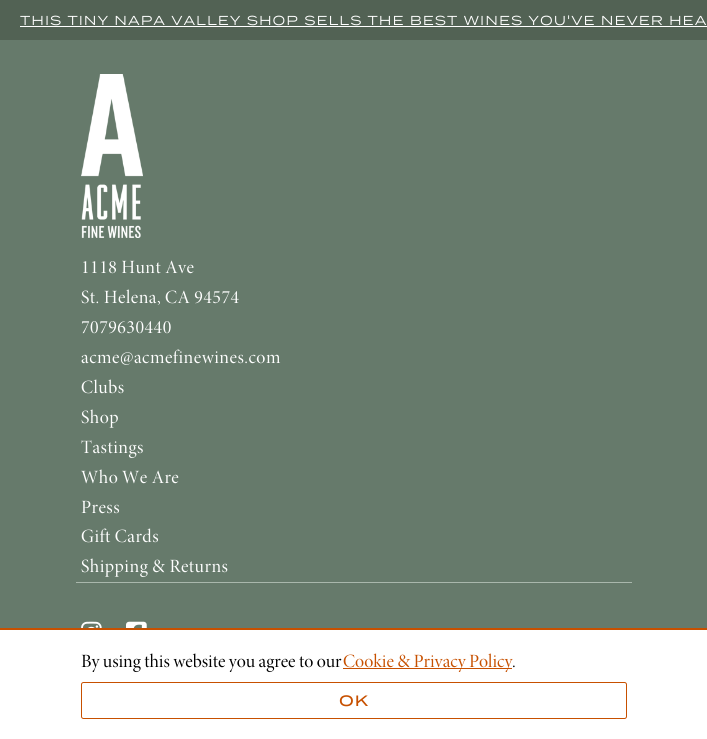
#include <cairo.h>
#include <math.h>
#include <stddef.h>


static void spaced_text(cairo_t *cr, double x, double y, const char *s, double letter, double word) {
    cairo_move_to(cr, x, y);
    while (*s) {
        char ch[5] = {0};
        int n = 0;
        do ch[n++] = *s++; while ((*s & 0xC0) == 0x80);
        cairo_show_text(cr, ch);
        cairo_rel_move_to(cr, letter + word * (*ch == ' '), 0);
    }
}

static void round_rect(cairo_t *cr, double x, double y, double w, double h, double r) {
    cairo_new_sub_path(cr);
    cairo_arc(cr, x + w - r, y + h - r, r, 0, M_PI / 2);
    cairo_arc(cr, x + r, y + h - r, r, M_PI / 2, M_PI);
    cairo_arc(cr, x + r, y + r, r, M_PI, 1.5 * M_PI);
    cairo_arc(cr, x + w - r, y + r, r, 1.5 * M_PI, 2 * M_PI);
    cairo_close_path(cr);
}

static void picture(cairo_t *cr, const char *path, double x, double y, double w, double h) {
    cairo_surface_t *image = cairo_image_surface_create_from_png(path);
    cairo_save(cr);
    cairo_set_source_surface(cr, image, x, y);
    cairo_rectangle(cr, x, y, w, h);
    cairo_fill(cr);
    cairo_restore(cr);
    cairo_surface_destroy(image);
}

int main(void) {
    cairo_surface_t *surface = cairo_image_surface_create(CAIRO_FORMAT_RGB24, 707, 739);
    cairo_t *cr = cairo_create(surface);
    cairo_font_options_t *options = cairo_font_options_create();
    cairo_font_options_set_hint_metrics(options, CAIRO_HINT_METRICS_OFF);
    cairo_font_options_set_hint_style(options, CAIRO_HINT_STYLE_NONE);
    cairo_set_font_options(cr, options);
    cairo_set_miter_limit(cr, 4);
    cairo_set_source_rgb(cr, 0.4, 0.478, 0.42);
    cairo_paint(cr);
    cairo_set_source_rgb(cr, 0.322, 0.384, 0.329);
    cairo_rectangle(cr, 0, 0, 707, 40);
    cairo_fill(cr);
    cairo_select_font_face(cr, "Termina", CAIRO_FONT_SLANT_NORMAL, CAIRO_FONT_WEIGHT_NORMAL);
    cairo_set_font_size(cr, 13);
    cairo_set_source_rgb(cr, 1, 1, 1);
    spaced_text(cr, 20, 25, "THIS TINY NAPA VALLEY SHOP SELLS THE BEST WINES YOU'VE NEVER HEA", 1, 0);
    cairo_rectangle(cr, 20, 26, 687, 1);
    cairo_fill(cr);
    picture(cr, "img1.png", 81, 74, 62, 164);
    cairo_select_font_face(cr, "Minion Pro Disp", CAIRO_FONT_SLANT_NORMAL, CAIRO_FONT_WEIGHT_NORMAL);
    cairo_set_font_size(cr, 18.75);
    spaced_text(cr, 81, 273, "1118 Hunt Ave", 0.5, 0);
    spaced_text(cr, 81, 303, "St. Helena, CA 94574", 0.5, 0);
    spaced_text(cr, 81, 333, "7079630440", 0.5, 0);
    spaced_text(cr, 81, 363, "acme@acmefinewines.com", 0.5, 0);
    spaced_text(cr, 81, 393, "Clubs", 0.5, 0);
    spaced_text(cr, 81, 423, "Shop", 0.5, 0);
    spaced_text(cr, 81, 453, "Tastings", 0.5, 0);
    spaced_text(cr, 81, 483, "Who We Are", 0.5, 0);
    spaced_text(cr, 81, 513, "Press", 0.5, 0);
    spaced_text(cr, 81, 542, "Gift Cards", 0.5, 0);
    spaced_text(cr, 81, 572, "Shipping & Returns", 0.5, 0);
    cairo_set_source_rgb(cr, 0.663, 0.718, 0.675);
    cairo_rectangle(cr, 76, 582, 556, 1);
    cairo_fill(cr);
    picture(cr, "img2.png", 81, 621, 21, 7);
    picture(cr, "img3.png", 126, 621, 21, 7);
    cairo_set_source_rgb(cr, 1, 1, 1);
    cairo_rectangle(cr, 0, 630, 707, 109);
    cairo_fill(cr);
    cairo_set_source_rgb(cr, 0.78, 0.314, 0);
    cairo_rectangle(cr, 0, 628, 707, 2);
    cairo_fill(cr);
    cairo_set_source_rgb(cr, 0, 0, 0);
    cairo_move_to(cr, 81, 667);
    cairo_show_text(cr, "By using this website you agree to our");
    cairo_set_source_rgb(cr, 0.78, 0.314, 0);
    cairo_rectangle(cr, 343, 668, 169, 1);
    cairo_fill(cr);
    cairo_move_to(cr, 343, 667);
    cairo_show_text(cr, "Cookie & Privacy Policy");
    cairo_set_source_rgb(cr, 0, 0, 0);
    cairo_move_to(cr, 512, 667);
    cairo_show_text(cr, ".");
    round_rect(cr, 81.5, 682.5, 545, 36, 2);
    cairo_set_source_rgb(cr, 0.78, 0.314, 0);
    cairo_set_line_width(cr, 1);
    cairo_stroke(cr);
    cairo_select_font_face(cr, "Termina Medium", CAIRO_FONT_SLANT_NORMAL, CAIRO_FONT_WEIGHT_NORMAL);
    cairo_set_font_size(cr, 15);
    spaced_text(cr, 339, 706, "OK", 1, 0);
    cairo_surface_write_to_png(surface, "page.png");
    cairo_font_options_destroy(options);
    cairo_destroy(cr);
    cairo_surface_destroy(surface);
    return 0;
}
